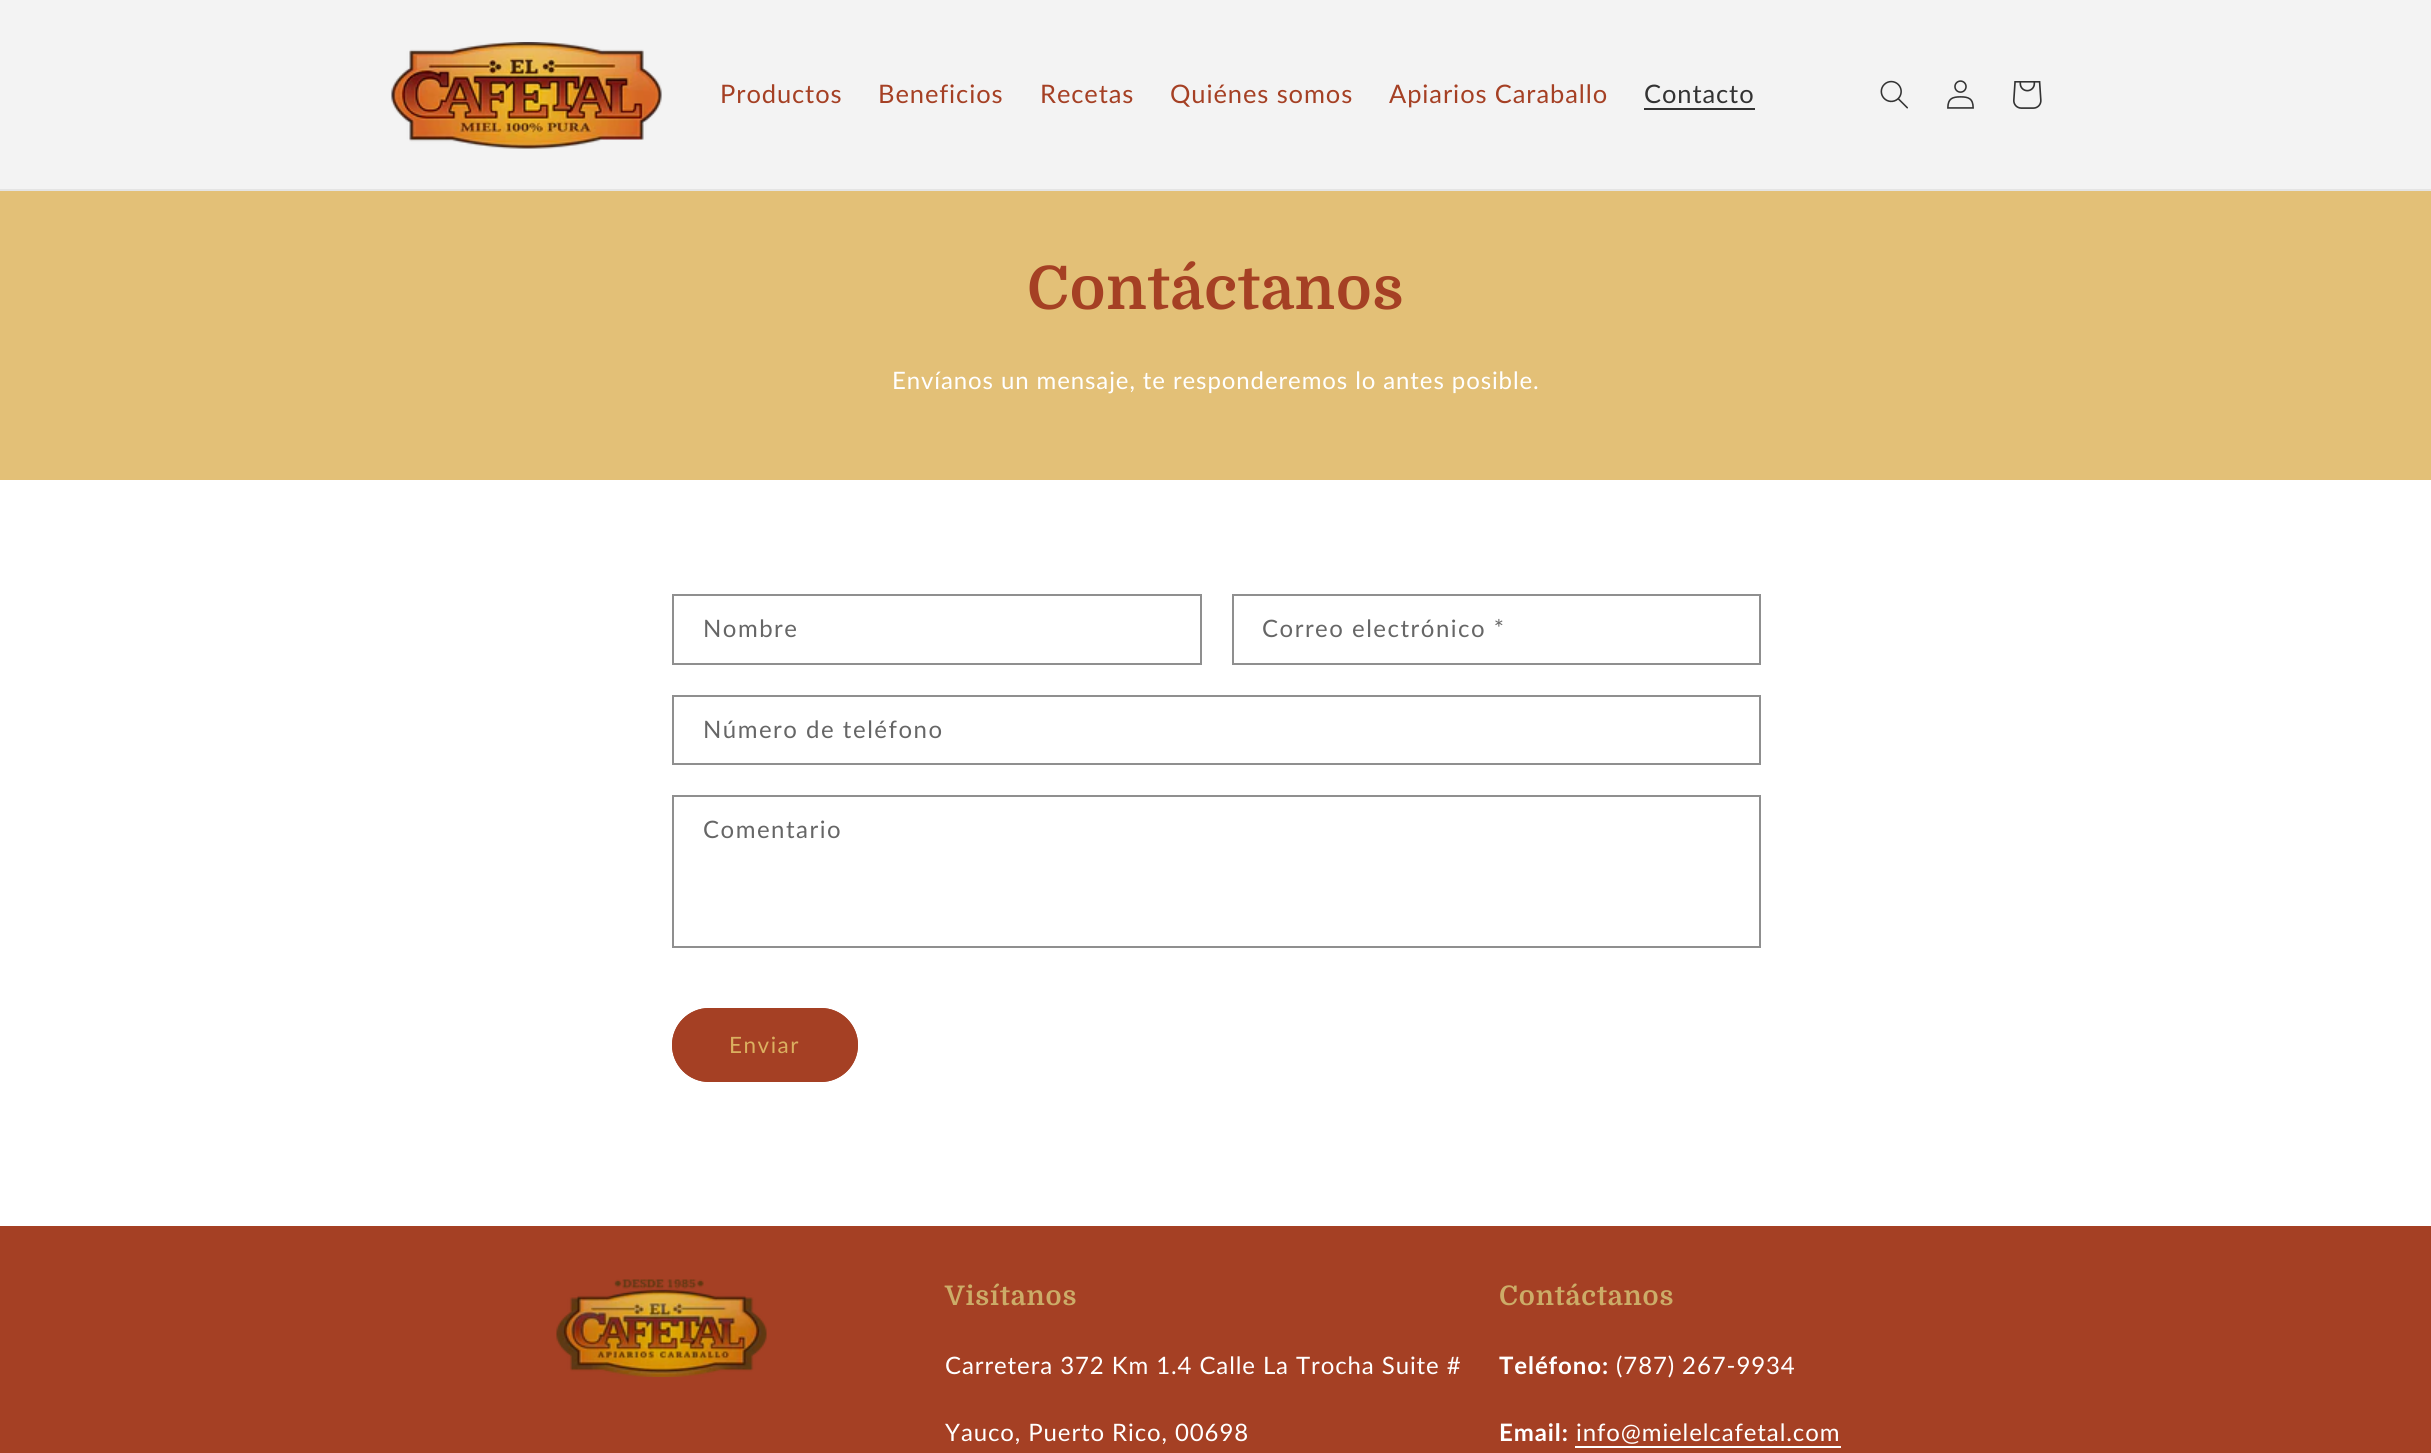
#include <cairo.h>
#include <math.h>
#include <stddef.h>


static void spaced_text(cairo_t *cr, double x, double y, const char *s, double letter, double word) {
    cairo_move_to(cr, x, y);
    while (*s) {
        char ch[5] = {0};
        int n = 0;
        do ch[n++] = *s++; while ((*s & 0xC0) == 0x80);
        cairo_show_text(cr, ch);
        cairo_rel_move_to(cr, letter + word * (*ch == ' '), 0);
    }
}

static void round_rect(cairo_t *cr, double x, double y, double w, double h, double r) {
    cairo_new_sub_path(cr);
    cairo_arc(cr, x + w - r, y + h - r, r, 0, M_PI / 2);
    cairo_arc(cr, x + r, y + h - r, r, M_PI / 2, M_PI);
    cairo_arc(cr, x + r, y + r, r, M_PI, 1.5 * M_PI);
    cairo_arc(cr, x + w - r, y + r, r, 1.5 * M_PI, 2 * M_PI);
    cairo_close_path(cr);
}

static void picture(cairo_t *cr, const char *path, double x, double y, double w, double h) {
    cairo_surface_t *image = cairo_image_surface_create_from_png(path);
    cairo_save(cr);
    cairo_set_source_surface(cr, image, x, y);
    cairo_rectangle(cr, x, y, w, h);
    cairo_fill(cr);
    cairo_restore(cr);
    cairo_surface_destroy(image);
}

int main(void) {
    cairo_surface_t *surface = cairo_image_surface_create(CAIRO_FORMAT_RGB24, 2431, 1453);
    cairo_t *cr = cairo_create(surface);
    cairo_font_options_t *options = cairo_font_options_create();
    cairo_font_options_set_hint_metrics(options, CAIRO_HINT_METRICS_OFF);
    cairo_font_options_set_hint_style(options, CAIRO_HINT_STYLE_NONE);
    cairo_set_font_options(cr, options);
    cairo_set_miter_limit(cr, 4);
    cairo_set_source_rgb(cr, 1, 1, 1);
    cairo_paint(cr);
    cairo_set_source_rgb(cr, 0.953, 0.953, 0.953);
    cairo_rectangle(cr, 0, 0, 2431, 189);
    cairo_fill(cr);
    cairo_set_source_rgb(cr, 0.894, 0.894, 0.894);
    cairo_rectangle(cr, 0, 189, 2431, 2);
    cairo_fill(cr);
    picture(cr, "img1.png", 391, 42, 271, 107);
    cairo_select_font_face(cr, "Lato", CAIRO_FONT_SLANT_NORMAL, CAIRO_FONT_WEIGHT_NORMAL);
    cairo_set_font_size(cr, 25.5);
    cairo_set_source_rgb(cr, 0.647, 0.251, 0.141);
    spaced_text(cr, 720, 103, "Productos", 0.9, 0);
    spaced_text(cr, 878, 103, "Beneficios", 0.9, 0);
    spaced_text(cr, 1040, 103, "Recetas", 0.9, 0);
    spaced_text(cr, 1170, 103, "Quiénes somos", 0.9, 0);
    spaced_text(cr, 1389, 103, "Apiarios Caraballo", 0.9, 0);
    cairo_set_source_rgb(cr, 0.2, 0.2, 0.2);
    spaced_text(cr, 1644, 103, "Contacto", 0.9, 0);
    cairo_rectangle(cr, 1644, 108, 111, 2);
    cairo_fill(cr);
    picture(cr, "img2.png", 1880, 80, 28, 29);
    picture(cr, "img3.png", 1947, 80, 27, 29);
    picture(cr, "img4.png", 2013, 81, 29, 28);
    cairo_set_source_rgb(cr, 0.89, 0.753, 0.467);
    cairo_rectangle(cr, 0, 191, 2431, 289);
    cairo_fill(cr);
    cairo_select_font_face(cr, "Domine", CAIRO_FONT_SLANT_NORMAL, CAIRO_FONT_WEIGHT_BOLD);
    cairo_set_font_size(cr, 60);
    cairo_set_source_rgb(cr, 0.647, 0.251, 0.141);
    spaced_text(cr, 1027, 309, "Contáctanos", 0.9, 0);
    cairo_select_font_face(cr, "Lato", CAIRO_FONT_SLANT_NORMAL, CAIRO_FONT_WEIGHT_NORMAL);
    cairo_set_font_size(cr, 24);
    cairo_set_source_rgb(cr, 1, 1, 1);
    spaced_text(cr, 892, 389, "Envíanos un mensaje, te responderemos lo antes posible.", 0.9, 0);
    cairo_rectangle(cr, 673, 595, 528, 69);
    cairo_set_source_rgb(cr, 0.561, 0.561, 0.561);
    cairo_stroke(cr);
    cairo_set_source_rgb(cr, 0.4, 0.4, 0.4);
    spaced_text(cr, 703, 637, "Nombre", 1.5, 0);
    cairo_rectangle(cr, 1233, 595, 527, 69);
    cairo_set_source_rgb(cr, 0.561, 0.561, 0.561);
    cairo_stroke(cr);
    cairo_set_source_rgb(cr, 0.4, 0.4, 0.4);
    spaced_text(cr, 1262, 637, "Correo electrónico *", 1.5, 0);
    cairo_rectangle(cr, 673, 696, 1087, 68);
    cairo_set_source_rgb(cr, 0.561, 0.561, 0.561);
    cairo_stroke(cr);
    cairo_set_source_rgb(cr, 0.4, 0.4, 0.4);
    spaced_text(cr, 703, 738, "Número de teléfono", 1.5, 0);
    cairo_rectangle(cr, 673, 796, 1087, 151);
    cairo_set_source_rgb(cr, 0.561, 0.561, 0.561);
    cairo_stroke(cr);
    cairo_set_source_rgb(cr, 0.4, 0.4, 0.4);
    spaced_text(cr, 703, 838, "Comentario", 1.5, 0);
    cairo_set_source_rgb(cr, 0.647, 0.251, 0.141);
    round_rect(cr, 672, 1008, 186, 74, 37);
    cairo_fill(cr);
    round_rect(cr, 673.5, 1009.5, 183, 71, 35.5);
    cairo_set_line_width(cr, 3);
    cairo_stroke(cr);
    cairo_set_font_size(cr, 22.5);
    cairo_set_source_rgb(cr, 0.859, 0.69, 0.376);
    spaced_text(cr, 729, 1053, "Enviar", 1.5, 0);
    cairo_set_source_rgb(cr, 0.647, 0.251, 0.141);
    cairo_rectangle(cr, 0, 1226, 2431, 227);
    cairo_fill(cr);
    picture(cr, "img5.png", 556, 1279, 211, 98);
    cairo_select_font_face(cr, "Domine", CAIRO_FONT_SLANT_NORMAL, CAIRO_FONT_WEIGHT_BOLD);
    cairo_set_font_size(cr, 27);
    cairo_set_source_rgb(cr, 0.8, 0.675, 0.408);
    spaced_text(cr, 945, 1305, "Visítanos", 0.9, 0);
    cairo_select_font_face(cr, "Lato", CAIRO_FONT_SLANT_NORMAL, CAIRO_FONT_WEIGHT_NORMAL);
    cairo_set_font_size(cr, 24);
    cairo_set_source_rgb(cr, 1, 1, 1);
    spaced_text(cr, 945, 1374, "Carretera 372 Km 1.4 Calle La Trocha Suite #", 0.9, 0);
    spaced_text(cr, 945, 1441, "Yauco, Puerto Rico, 00698", 0.9, 0);
    cairo_select_font_face(cr, "Domine", CAIRO_FONT_SLANT_NORMAL, CAIRO_FONT_WEIGHT_BOLD);
    cairo_set_font_size(cr, 27);
    cairo_set_source_rgb(cr, 0.8, 0.675, 0.408);
    spaced_text(cr, 1499, 1305, "Contáctanos", 0.9, 0);
    cairo_select_font_face(cr, "Lato", CAIRO_FONT_SLANT_NORMAL, CAIRO_FONT_WEIGHT_BOLD);
    cairo_set_font_size(cr, 24);
    cairo_set_source_rgb(cr, 1, 1, 1);
    spaced_text(cr, 1499, 1374, "Teléfono:", 0.9, 0);
    cairo_select_font_face(cr, "Lato", CAIRO_FONT_SLANT_NORMAL, CAIRO_FONT_WEIGHT_NORMAL);
    spaced_text(cr, 1616, 1374, "(787) 267-9934", 0.9, 0);
    cairo_select_font_face(cr, "Lato", CAIRO_FONT_SLANT_NORMAL, CAIRO_FONT_WEIGHT_BOLD);
    spaced_text(cr, 1499, 1441, "Email:", 0.9, 0);
    cairo_select_font_face(cr, "Lato", CAIRO_FONT_SLANT_NORMAL, CAIRO_FONT_WEIGHT_NORMAL);
    spaced_text(cr, 1576, 1441, "info@mielelcafetal.com", 0.9, 0);
    cairo_rectangle(cr, 1575, 1446, 266, 2);
    cairo_fill(cr);
    cairo_surface_write_to_png(surface, "page.png");
    cairo_font_options_destroy(options);
    cairo_destroy(cr);
    cairo_surface_destroy(surface);
    return 0;
}
